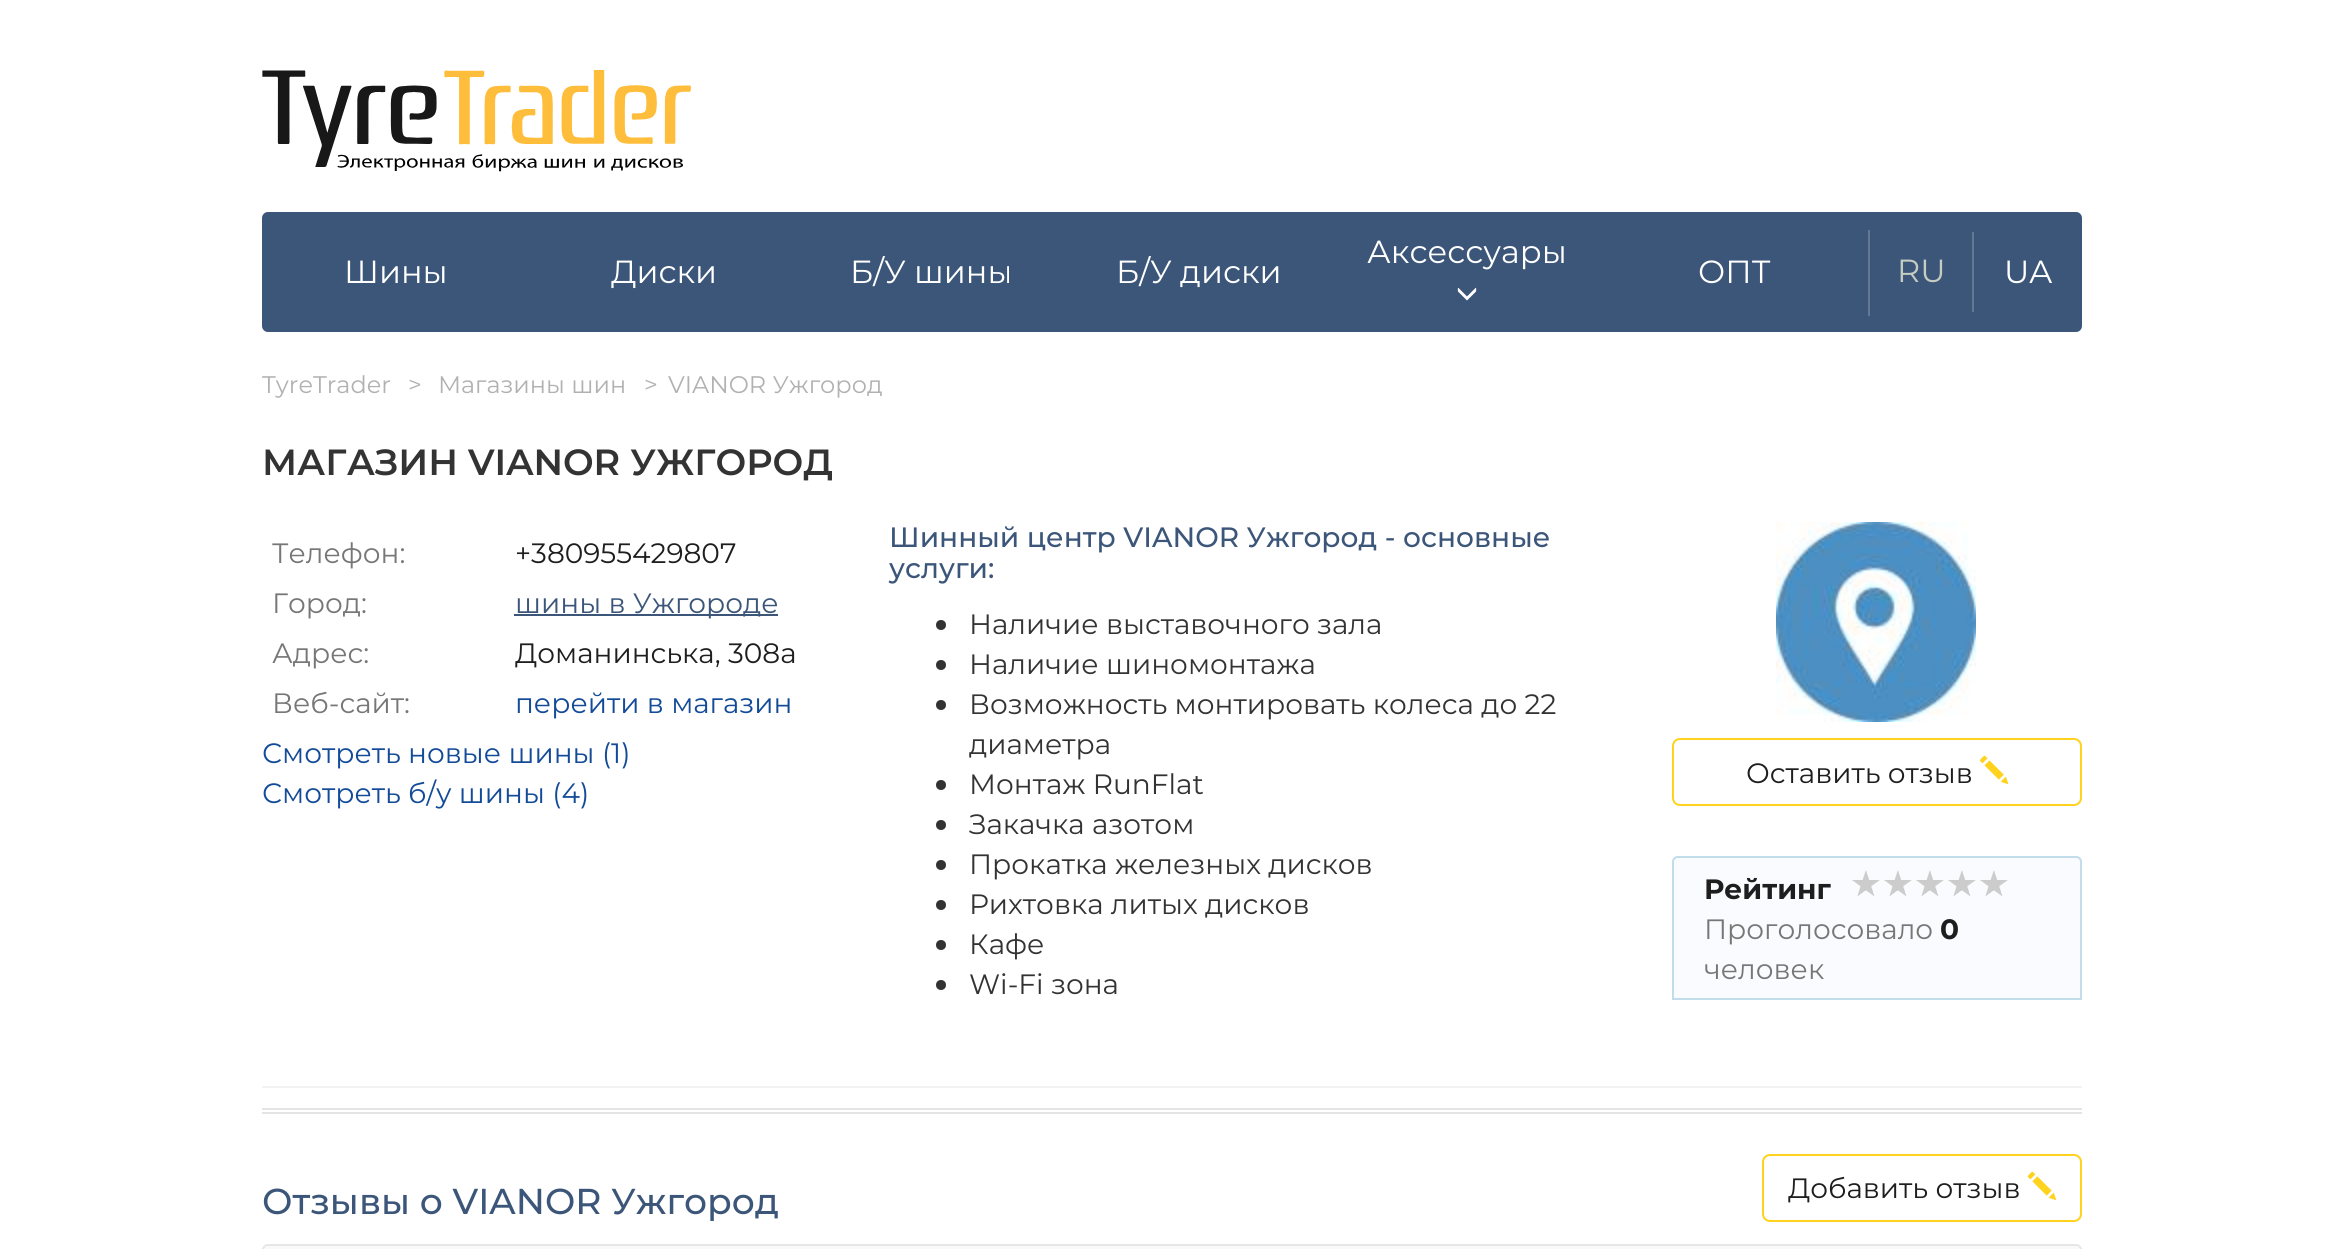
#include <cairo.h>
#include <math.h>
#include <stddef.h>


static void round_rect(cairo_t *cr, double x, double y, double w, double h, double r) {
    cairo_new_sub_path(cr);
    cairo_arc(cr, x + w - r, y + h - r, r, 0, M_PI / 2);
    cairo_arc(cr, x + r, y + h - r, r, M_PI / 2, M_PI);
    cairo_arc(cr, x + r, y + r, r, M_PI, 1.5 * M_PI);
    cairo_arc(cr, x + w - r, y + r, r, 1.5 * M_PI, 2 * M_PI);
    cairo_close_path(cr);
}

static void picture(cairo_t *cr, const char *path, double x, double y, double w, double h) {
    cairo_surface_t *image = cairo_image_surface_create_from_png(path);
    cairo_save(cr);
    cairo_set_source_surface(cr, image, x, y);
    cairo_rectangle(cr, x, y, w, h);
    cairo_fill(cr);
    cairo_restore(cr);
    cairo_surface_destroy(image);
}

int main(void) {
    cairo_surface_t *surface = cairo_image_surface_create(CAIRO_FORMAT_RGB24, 2344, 1249);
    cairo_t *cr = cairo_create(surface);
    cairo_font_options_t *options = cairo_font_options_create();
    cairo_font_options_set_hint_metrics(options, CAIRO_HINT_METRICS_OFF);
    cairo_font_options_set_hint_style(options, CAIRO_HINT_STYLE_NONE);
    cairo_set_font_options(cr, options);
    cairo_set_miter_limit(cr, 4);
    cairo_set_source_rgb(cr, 1, 1, 1);
    cairo_paint(cr);
    picture(cr, "img1.png", 262, 70, 429, 102);
    cairo_set_source_rgb(cr, 0.235, 0.337, 0.478);
    round_rect(cr, 262, 212, 1820, 120, 6);
    cairo_fill(cr);
    cairo_select_font_face(cr, "Montserrat", CAIRO_FONT_SLANT_NORMAL, CAIRO_FONT_WEIGHT_NORMAL);
    cairo_set_font_size(cr, 32);
    cairo_set_source_rgb(cr, 1, 1, 1);
    cairo_move_to(cr, 344, 283);
    cairo_show_text(cr, "Шины");
    cairo_move_to(cr, 611, 283);
    cairo_show_text(cr, "Диски");
    cairo_move_to(cr, 850, 283);
    cairo_show_text(cr, "Б/У шины");
    cairo_move_to(cr, 1116, 283);
    cairo_show_text(cr, "Б/У диски");
    cairo_move_to(cr, 1367, 263);
    cairo_show_text(cr, "Аксессуары");
    picture(cr, "img2.png", 1457, 287, 20, 14);
    cairo_move_to(cr, 1698, 283);
    cairo_show_text(cr, "ОПТ");
    cairo_set_source_rgb(cr, 0.388, 0.471, 0.584);
    cairo_rectangle(cr, 1868, 230, 2, 86);
    cairo_fill(cr);
    cairo_set_source_rgb(cr, 0.773, 0.8, 0.761);
    cairo_move_to(cr, 1897, 282);
    cairo_show_text(cr, "RU");
    cairo_set_source_rgb(cr, 0.388, 0.471, 0.584);
    cairo_rectangle(cr, 1972, 232, 2, 80);
    cairo_fill(cr);
    cairo_set_source_rgb(cr, 1, 1, 1);
    cairo_move_to(cr, 2004, 283);
    cairo_show_text(cr, "UA");
    cairo_set_font_size(cr, 24);
    cairo_set_source_rgb(cr, 0.694, 0.694, 0.694);
    cairo_move_to(cr, 262, 393);
    cairo_show_text(cr, "TyreTrader");
    cairo_move_to(cr, 408, 393);
    cairo_show_text(cr, ">");
    cairo_move_to(cr, 438, 393);
    cairo_show_text(cr, "Магазины шин");
    cairo_move_to(cr, 644, 393);
    cairo_show_text(cr, ">");
    cairo_move_to(cr, 668, 393);
    cairo_show_text(cr, "VIANOR Ужгород");
    cairo_select_font_face(cr, "Montserrat SemiBold", CAIRO_FONT_SLANT_NORMAL, CAIRO_FONT_WEIGHT_NORMAL);
    cairo_set_font_size(cr, 36.4);
    cairo_set_source_rgb(cr, 0.2, 0.2, 0.2);
    cairo_move_to(cr, 262, 475);
    cairo_show_text(cr, "МАГАЗИН VIANOR УЖГОРОД");
    cairo_select_font_face(cr, "Montserrat", CAIRO_FONT_SLANT_NORMAL, CAIRO_FONT_WEIGHT_NORMAL);
    cairo_set_font_size(cr, 28);
    cairo_set_source_rgb(cr, 0.467, 0.467, 0.467);
    cairo_move_to(cr, 272, 563);
    cairo_show_text(cr, "Телефон:");
    cairo_set_source_rgb(cr, 0.118, 0.118, 0.118);
    cairo_move_to(cr, 515, 563);
    cairo_show_text(cr, "+380955429807");
    cairo_set_source_rgb(cr, 0.467, 0.467, 0.467);
    cairo_move_to(cr, 272, 613);
    cairo_show_text(cr, "Город:");
    cairo_set_source_rgb(cr, 0.235, 0.337, 0.478);
    cairo_rectangle(cr, 514, 614, 264, 2);
    cairo_fill(cr);
    cairo_move_to(cr, 515, 613);
    cairo_show_text(cr, "шины в Ужгороде");
    cairo_set_source_rgb(cr, 0.467, 0.467, 0.467);
    cairo_move_to(cr, 272, 663);
    cairo_show_text(cr, "Адрес:");
    cairo_set_source_rgb(cr, 0.118, 0.118, 0.118);
    cairo_move_to(cr, 515, 663);
    cairo_show_text(cr, "Доманинська, 308а");
    cairo_set_source_rgb(cr, 0.467, 0.467, 0.467);
    cairo_move_to(cr, 272, 713);
    cairo_show_text(cr, "Веб-сайт:");
    cairo_set_source_rgb(cr, 0.078, 0.294, 0.596);
    cairo_move_to(cr, 515, 713);
    cairo_show_text(cr, "перейти в магазин");
    cairo_move_to(cr, 262, 763);
    cairo_show_text(cr, "Смотреть новые шины (1)");
    cairo_move_to(cr, 262, 803);
    cairo_show_text(cr, "Смотреть б/у шины (4)");
    cairo_select_font_face(cr, "Montserrat Medium", CAIRO_FONT_SLANT_NORMAL, CAIRO_FONT_WEIGHT_NORMAL);
    cairo_set_source_rgb(cr, 0.235, 0.337, 0.478);
    cairo_move_to(cr, 889, 547);
    cairo_show_text(cr, "Шинный центр VIANOR Ужгород - основные");
    cairo_move_to(cr, 889, 578);
    cairo_show_text(cr, "услуги:");
    cairo_set_source_rgb(cr, 0.2, 0.2, 0.2);
    cairo_new_path(cr);
    cairo_arc(cr, 941, 625, 5, 0, 2 * M_PI);
    cairo_fill(cr);
    cairo_select_font_face(cr, "Montserrat", CAIRO_FONT_SLANT_NORMAL, CAIRO_FONT_WEIGHT_NORMAL);
    cairo_move_to(cr, 969, 634);
    cairo_show_text(cr, "Наличие выставочного зала");
    cairo_new_path(cr);
    cairo_arc(cr, 941, 665, 5, 0, 2 * M_PI);
    cairo_fill(cr);
    cairo_move_to(cr, 969, 674);
    cairo_show_text(cr, "Наличие шиномонтажа");
    cairo_new_path(cr);
    cairo_arc(cr, 941, 705, 5, 0, 2 * M_PI);
    cairo_fill(cr);
    cairo_move_to(cr, 969, 714);
    cairo_show_text(cr, "Возможность монтировать колеса до 22");
    cairo_move_to(cr, 969, 754);
    cairo_show_text(cr, "диаметра");
    cairo_new_path(cr);
    cairo_arc(cr, 941, 785, 5, 0, 2 * M_PI);
    cairo_fill(cr);
    cairo_move_to(cr, 969, 794);
    cairo_show_text(cr, "Монтаж RunFlat");
    cairo_new_path(cr);
    cairo_arc(cr, 941, 825, 5, 0, 2 * M_PI);
    cairo_fill(cr);
    cairo_move_to(cr, 969, 834);
    cairo_show_text(cr, "Закачка азотом");
    cairo_new_path(cr);
    cairo_arc(cr, 941, 865, 5, 0, 2 * M_PI);
    cairo_fill(cr);
    cairo_move_to(cr, 969, 874);
    cairo_show_text(cr, "Прокатка железных дисков");
    cairo_new_path(cr);
    cairo_arc(cr, 941, 905, 5, 0, 2 * M_PI);
    cairo_fill(cr);
    cairo_move_to(cr, 969, 914);
    cairo_show_text(cr, "Рихтовка литых дисков");
    cairo_new_path(cr);
    cairo_arc(cr, 941, 945, 5, 0, 2 * M_PI);
    cairo_fill(cr);
    cairo_move_to(cr, 969, 954);
    cairo_show_text(cr, "Кафе");
    cairo_new_path(cr);
    cairo_arc(cr, 941, 985, 5, 0, 2 * M_PI);
    cairo_fill(cr);
    cairo_move_to(cr, 969, 994);
    cairo_show_text(cr, "Wi-Fi зона");
    picture(cr, "img3.png", 1776, 522, 200, 200);
    round_rect(cr, 1673, 739, 408, 66, 7);
    cairo_set_source_rgb(cr, 1, 0.824, 0.114);
    cairo_stroke(cr);
    cairo_set_source_rgb(cr, 0.118, 0.118, 0.118);
    cairo_move_to(cr, 1746, 783);
    cairo_show_text(cr, "Оставить отзыв");
    picture(cr, "img4.png", 1979, 755, 30, 30);
    cairo_set_source_rgb(cr, 0.973, 0.984, 0.996);
    cairo_new_path(cr);
    cairo_move_to(cr, 1678, 857);
    cairo_line_to(cr, 2076, 857);
    cairo_curve_to(cr, 2079, 857, 2081, 859, 2081, 862);
    cairo_line_to(cr, 2081, 999);
    cairo_line_to(cr, 1673, 999);
    cairo_line_to(cr, 1673, 862);
    cairo_curve_to(cr, 1673, 859, 1675, 857, 1678, 857);
    cairo_close_path(cr);
    cairo_fill_preserve(cr);
    cairo_set_source_rgb(cr, 0.761, 0.863, 0.922);
    cairo_stroke(cr);
    cairo_select_font_face(cr, "Montserrat", CAIRO_FONT_SLANT_NORMAL, CAIRO_FONT_WEIGHT_BOLD);
    cairo_set_source_rgb(cr, 0.118, 0.118, 0.118);
    cairo_move_to(cr, 1704, 899);
    cairo_show_text(cr, "Рейтинг");
    picture(cr, "img5.png", 1852, 870, 156, 27);
    cairo_select_font_face(cr, "Montserrat", CAIRO_FONT_SLANT_NORMAL, CAIRO_FONT_WEIGHT_NORMAL);
    cairo_set_source_rgb(cr, 0.467, 0.467, 0.467);
    cairo_move_to(cr, 1704, 939);
    cairo_show_text(cr, "Проголосовало");
    cairo_select_font_face(cr, "Montserrat", CAIRO_FONT_SLANT_NORMAL, CAIRO_FONT_WEIGHT_BOLD);
    cairo_set_source_rgb(cr, 0.118, 0.118, 0.118);
    cairo_move_to(cr, 1940, 939);
    cairo_show_text(cr, "0");
    cairo_select_font_face(cr, "Montserrat", CAIRO_FONT_SLANT_NORMAL, CAIRO_FONT_WEIGHT_NORMAL);
    cairo_set_source_rgb(cr, 0.467, 0.467, 0.467);
    cairo_move_to(cr, 1704, 979);
    cairo_show_text(cr, "человек");
    cairo_set_source_rgb(cr, 0.953, 0.953, 0.953);
    cairo_rectangle(cr, 262, 1086, 1820, 2);
    cairo_fill(cr);
    cairo_set_source_rgb(cr, 0.894, 0.894, 0.894);
    cairo_rectangle(cr, 262, 1108, 1820, 2);
    cairo_fill(cr);
    cairo_rectangle(cr, 262, 1112, 1820, 2);
    cairo_fill(cr);
    cairo_select_font_face(cr, "Montserrat Medium", CAIRO_FONT_SLANT_NORMAL, CAIRO_FONT_WEIGHT_NORMAL);
    cairo_set_font_size(cr, 36);
    cairo_set_source_rgb(cr, 0.235, 0.337, 0.478);
    cairo_move_to(cr, 262, 1214);
    cairo_show_text(cr, "Отзывы о VIANOR Ужгород");
    round_rect(cr, 1763, 1155, 318, 66, 7);
    cairo_set_source_rgb(cr, 1, 0.824, 0.114);
    cairo_stroke(cr);
    cairo_select_font_face(cr, "Montserrat", CAIRO_FONT_SLANT_NORMAL, CAIRO_FONT_WEIGHT_NORMAL);
    cairo_set_font_size(cr, 28);
    cairo_set_source_rgb(cr, 0.118, 0.118, 0.118);
    cairo_move_to(cr, 1788, 1198);
    cairo_show_text(cr, "Добавить отзыв");
    picture(cr, "img6.png", 2027, 1171, 30, 30);
    cairo_set_source_rgb(cr, 0.973, 0.973, 0.973);
    round_rect(cr, 263, 1245, 1818, 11, 5);
    cairo_fill_preserve(cr);
    cairo_set_source_rgb(cr, 0.902, 0.902, 0.902);
    cairo_stroke(cr);
    cairo_surface_write_to_png(surface, "page.png");
    cairo_font_options_destroy(options);
    cairo_destroy(cr);
    cairo_surface_destroy(surface);
    return 0;
}
